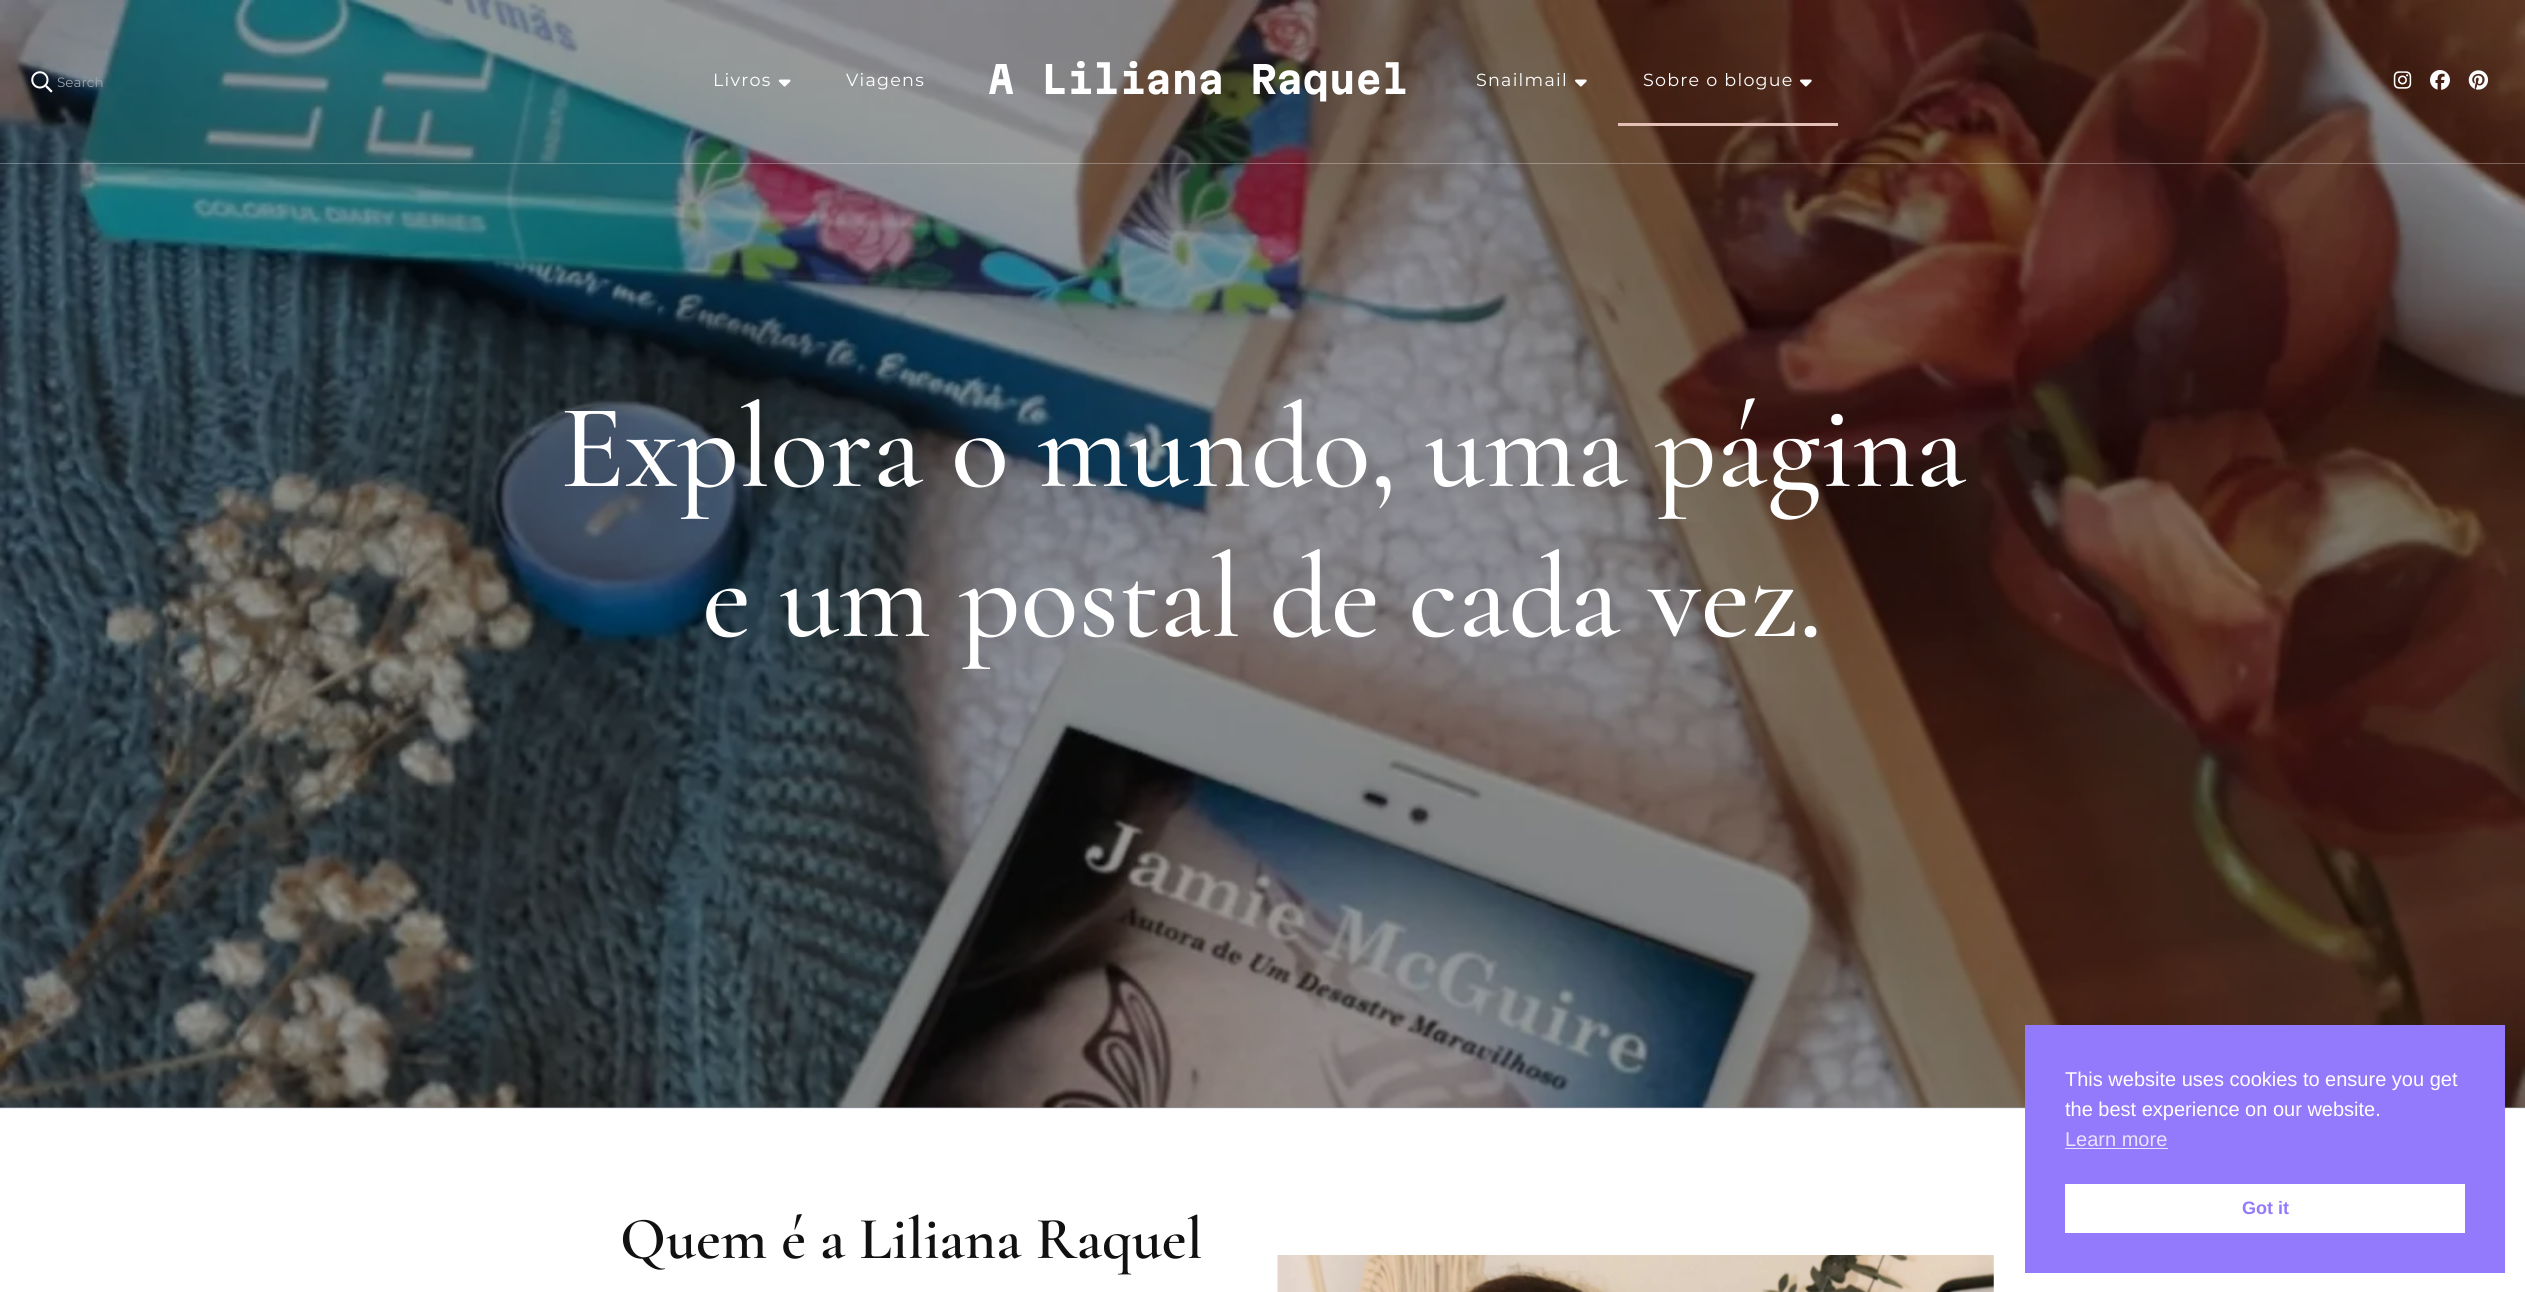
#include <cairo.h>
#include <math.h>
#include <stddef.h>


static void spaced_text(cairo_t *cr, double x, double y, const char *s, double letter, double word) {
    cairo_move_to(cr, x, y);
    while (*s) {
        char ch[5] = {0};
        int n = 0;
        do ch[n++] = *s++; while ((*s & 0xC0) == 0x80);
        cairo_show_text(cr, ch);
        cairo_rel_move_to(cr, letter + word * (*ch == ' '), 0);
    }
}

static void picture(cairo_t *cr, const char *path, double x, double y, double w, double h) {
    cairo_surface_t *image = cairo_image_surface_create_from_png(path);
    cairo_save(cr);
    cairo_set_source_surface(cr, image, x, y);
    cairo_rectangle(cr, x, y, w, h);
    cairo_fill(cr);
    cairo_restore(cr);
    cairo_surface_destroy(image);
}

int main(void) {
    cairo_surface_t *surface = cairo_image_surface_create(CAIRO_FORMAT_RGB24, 2525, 1292);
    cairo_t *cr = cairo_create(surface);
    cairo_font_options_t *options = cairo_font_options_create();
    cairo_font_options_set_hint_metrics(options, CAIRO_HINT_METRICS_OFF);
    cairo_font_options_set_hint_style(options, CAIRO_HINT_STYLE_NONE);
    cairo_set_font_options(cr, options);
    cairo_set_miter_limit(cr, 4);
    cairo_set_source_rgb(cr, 1, 1, 1);
    cairo_paint(cr);
    cairo_set_source_rgb(cr, 0.6, 0.6, 0.6);
    cairo_rectangle(cr, 0, 1107, 2525, 1);
    cairo_fill(cr);
    picture(cr, "img8.png", 0, 0, 2525, 1108);
    cairo_set_source_rgba(cr, 1, 1, 1, 0.3);
    cairo_rectangle(cr, 0, 163, 2525, 1);
    cairo_fill(cr);
    picture(cr, "img1.png", 31, 71, 22, 22);
    cairo_select_font_face(cr, "Montserrat", CAIRO_FONT_SLANT_NORMAL, CAIRO_FONT_WEIGHT_NORMAL);
    cairo_set_font_size(cr, 13.5);
    cairo_set_source_rgb(cr, 0.608, 0.643, 0.675);
    cairo_move_to(cr, 57, 87);
    cairo_show_text(cr, "Search");
    cairo_set_font_size(cr, 17.5);
    cairo_set_source_rgb(cr, 1, 1, 1);
    spaced_text(cr, 713, 86, "Livros", 1.25, 0);
    picture(cr, "img2.png", 778, 79, 13, 8);
    spaced_text(cr, 846, 86, "Viagens", 1.25, 0);
    cairo_select_font_face(cr, "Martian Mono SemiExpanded", CAIRO_FONT_SLANT_NORMAL, CAIRO_FONT_WEIGHT_BOLD);
    cairo_set_font_size(cr, 37.5);
    cairo_move_to(cr, 988, 94);
    cairo_show_text(cr, "A Liliana Raquel");
    cairo_select_font_face(cr, "Montserrat", CAIRO_FONT_SLANT_NORMAL, CAIRO_FONT_WEIGHT_NORMAL);
    cairo_set_font_size(cr, 17.5);
    spaced_text(cr, 1476, 86, "Snailmail", 1.25, 0);
    picture(cr, "img3.png", 1575, 79, 12, 8);
    spaced_text(cr, 1643, 86, "Sobre o blogue", 1.25, 0);
    cairo_set_source_rgb(cr, 0.894, 0.749, 0.714);
    cairo_rectangle(cr, 1618, 123, 220, 3);
    cairo_fill(cr);
    picture(cr, "img4.png", 1800, 79, 12, 8);
    picture(cr, "img5.png", 2393, 71, 19, 18);
    picture(cr, "img6.png", 2430, 70, 20, 20);
    picture(cr, "img7.png", 2468, 70, 21, 20);
    cairo_select_font_face(cr, "Cormorant Garamond Medium", CAIRO_FONT_SLANT_NORMAL, CAIRO_FONT_WEIGHT_NORMAL);
    cairo_set_font_size(cr, 120);
    cairo_set_source_rgb(cr, 1, 1, 1);
    cairo_move_to(cr, 560, 486);
    cairo_show_text(cr, "Explora o mundo, uma página");
    cairo_move_to(cr, 702, 636);
    cairo_show_text(cr, "e um postal de cada vez.");
    cairo_set_source_rgb(cr, 0.922, 0.933, 0.973);
    cairo_rectangle(cr, 0, 1108, 2525, 1);
    cairo_fill(cr);
    cairo_select_font_face(cr, "Cormorant Garamond SemiBold", CAIRO_FONT_SLANT_NORMAL, CAIRO_FONT_WEIGHT_NORMAL);
    cairo_set_font_size(cr, 60);
    cairo_set_source_rgb(cr, 0.067, 0.067, 0.067);
    cairo_move_to(cr, 620, 1258);
    cairo_show_text(cr, "Quem é a Liliana Raquel");
    picture(cr, "img9.png", 1277, 1255, 717, 37);
    cairo_set_source_rgb(cr, 0.576, 0.478, 0.988);
    cairo_rectangle(cr, 2025, 1025, 480, 248);
    cairo_fill(cr);
    cairo_select_font_face(cr, "Liberation Sans", CAIRO_FONT_SLANT_NORMAL, CAIRO_FONT_WEIGHT_NORMAL);
    cairo_set_font_size(cr, 20);
    cairo_set_source_rgb(cr, 1, 1, 1);
    cairo_move_to(cr, 2065, 1086);
    cairo_show_text(cr, "This website uses cookies to ensure you get");
    cairo_move_to(cr, 2065, 1116);
    cairo_show_text(cr, "the best experience on our website.");
    cairo_set_source_rgb(cr, 0.914, 0.894, 0.996);
    cairo_move_to(cr, 2065, 1146);
    cairo_show_text(cr, "Learn more");
    cairo_rectangle(cr, 2065, 1148, 103, 1);
    cairo_fill(cr);
    cairo_set_source_rgb(cr, 1, 1, 1);
    cairo_rectangle(cr, 2065, 1184, 400, 49);
    cairo_fill(cr);
    cairo_select_font_face(cr, "Liberation Sans", CAIRO_FONT_SLANT_NORMAL, CAIRO_FONT_WEIGHT_BOLD);
    cairo_set_font_size(cr, 18);
    cairo_set_source_rgb(cr, 0.576, 0.478, 0.988);
    cairo_move_to(cr, 2242, 1214);
    cairo_show_text(cr, "Got it");
    cairo_surface_write_to_png(surface, "page.png");
    cairo_font_options_destroy(options);
    cairo_destroy(cr);
    cairo_surface_destroy(surface);
    return 0;
}
